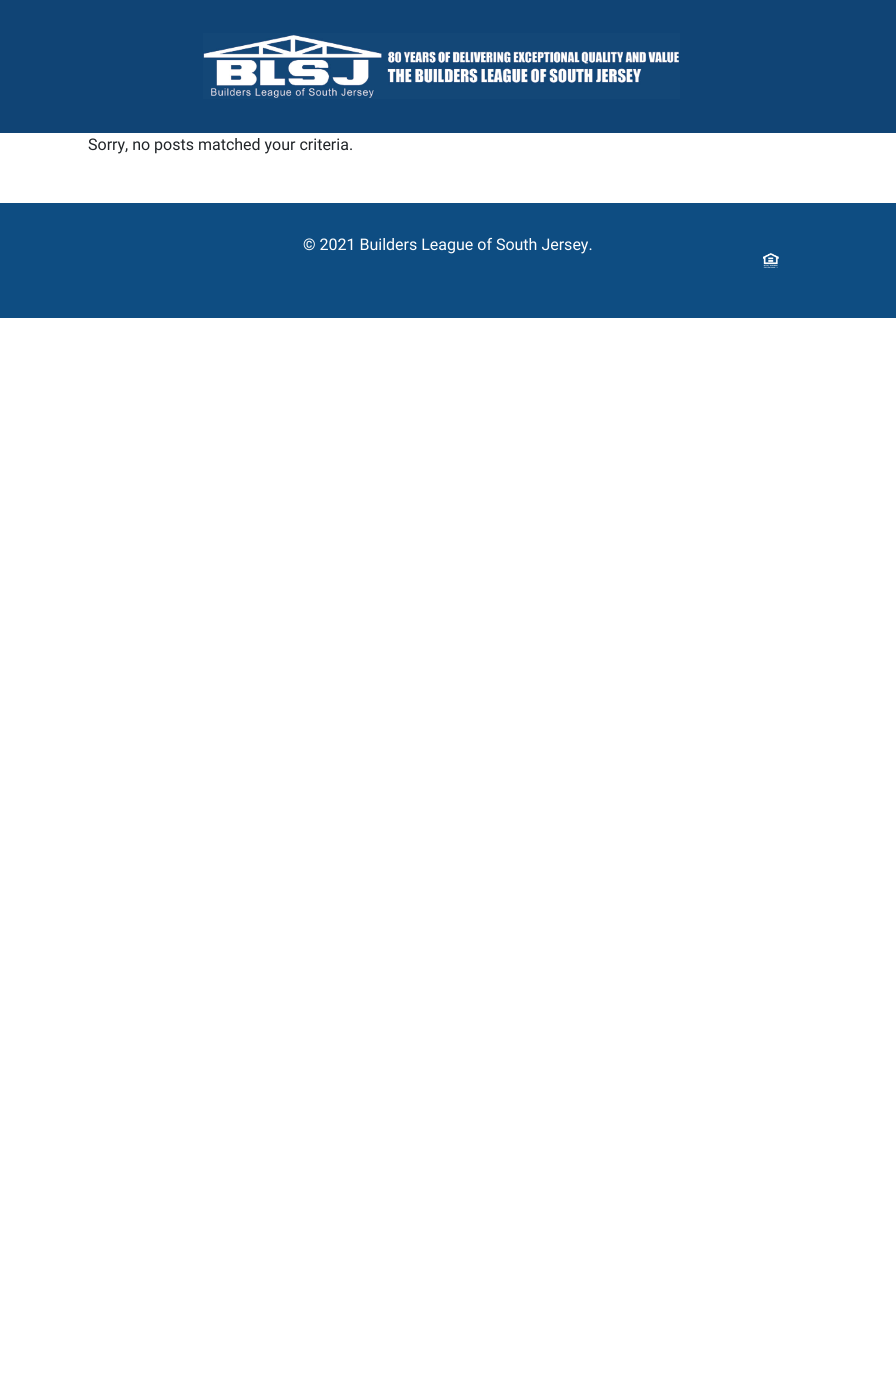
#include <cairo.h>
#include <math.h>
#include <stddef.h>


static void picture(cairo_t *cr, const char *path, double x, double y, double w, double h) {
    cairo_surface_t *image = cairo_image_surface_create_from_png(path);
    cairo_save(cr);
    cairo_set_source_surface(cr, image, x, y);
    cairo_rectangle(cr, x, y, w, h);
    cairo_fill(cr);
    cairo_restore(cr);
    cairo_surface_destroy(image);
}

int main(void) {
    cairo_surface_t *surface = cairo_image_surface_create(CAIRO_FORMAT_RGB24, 896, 1395);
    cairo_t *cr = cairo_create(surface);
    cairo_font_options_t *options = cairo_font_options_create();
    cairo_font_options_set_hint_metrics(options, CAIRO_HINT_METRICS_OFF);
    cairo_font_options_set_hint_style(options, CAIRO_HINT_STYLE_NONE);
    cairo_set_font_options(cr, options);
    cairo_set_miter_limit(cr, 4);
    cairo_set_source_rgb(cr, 1, 1, 1);
    cairo_paint(cr);
    cairo_set_source_rgb(cr, 0.063, 0.267, 0.459);
    cairo_rectangle(cr, 0, 0, 896, 133);
    cairo_fill(cr);
    picture(cr, "img1.png", 203, 33, 477, 66);
    cairo_select_font_face(cr, "Roboto", CAIRO_FONT_SLANT_NORMAL, CAIRO_FONT_WEIGHT_NORMAL);
    cairo_set_font_size(cr, 16);
    cairo_set_source_rgb(cr, 0.129, 0.145, 0.161);
    cairo_move_to(cr, 88, 150);
    cairo_show_text(cr, "Sorry, no posts matched your criteria.");
    cairo_set_source_rgb(cr, 0.055, 0.302, 0.51);
    cairo_rectangle(cr, 0, 203, 896, 115);
    cairo_fill(cr);
    cairo_set_source_rgb(cr, 0.996, 0.996, 0.996);
    cairo_move_to(cr, 303, 250);
    cairo_show_text(cr, "© 2021 Builders League of South Jersey.");
    picture(cr, "img2.png", 763, 253, 16, 15);
    cairo_surface_write_to_png(surface, "page.png");
    cairo_font_options_destroy(options);
    cairo_destroy(cr);
    cairo_surface_destroy(surface);
    return 0;
}
